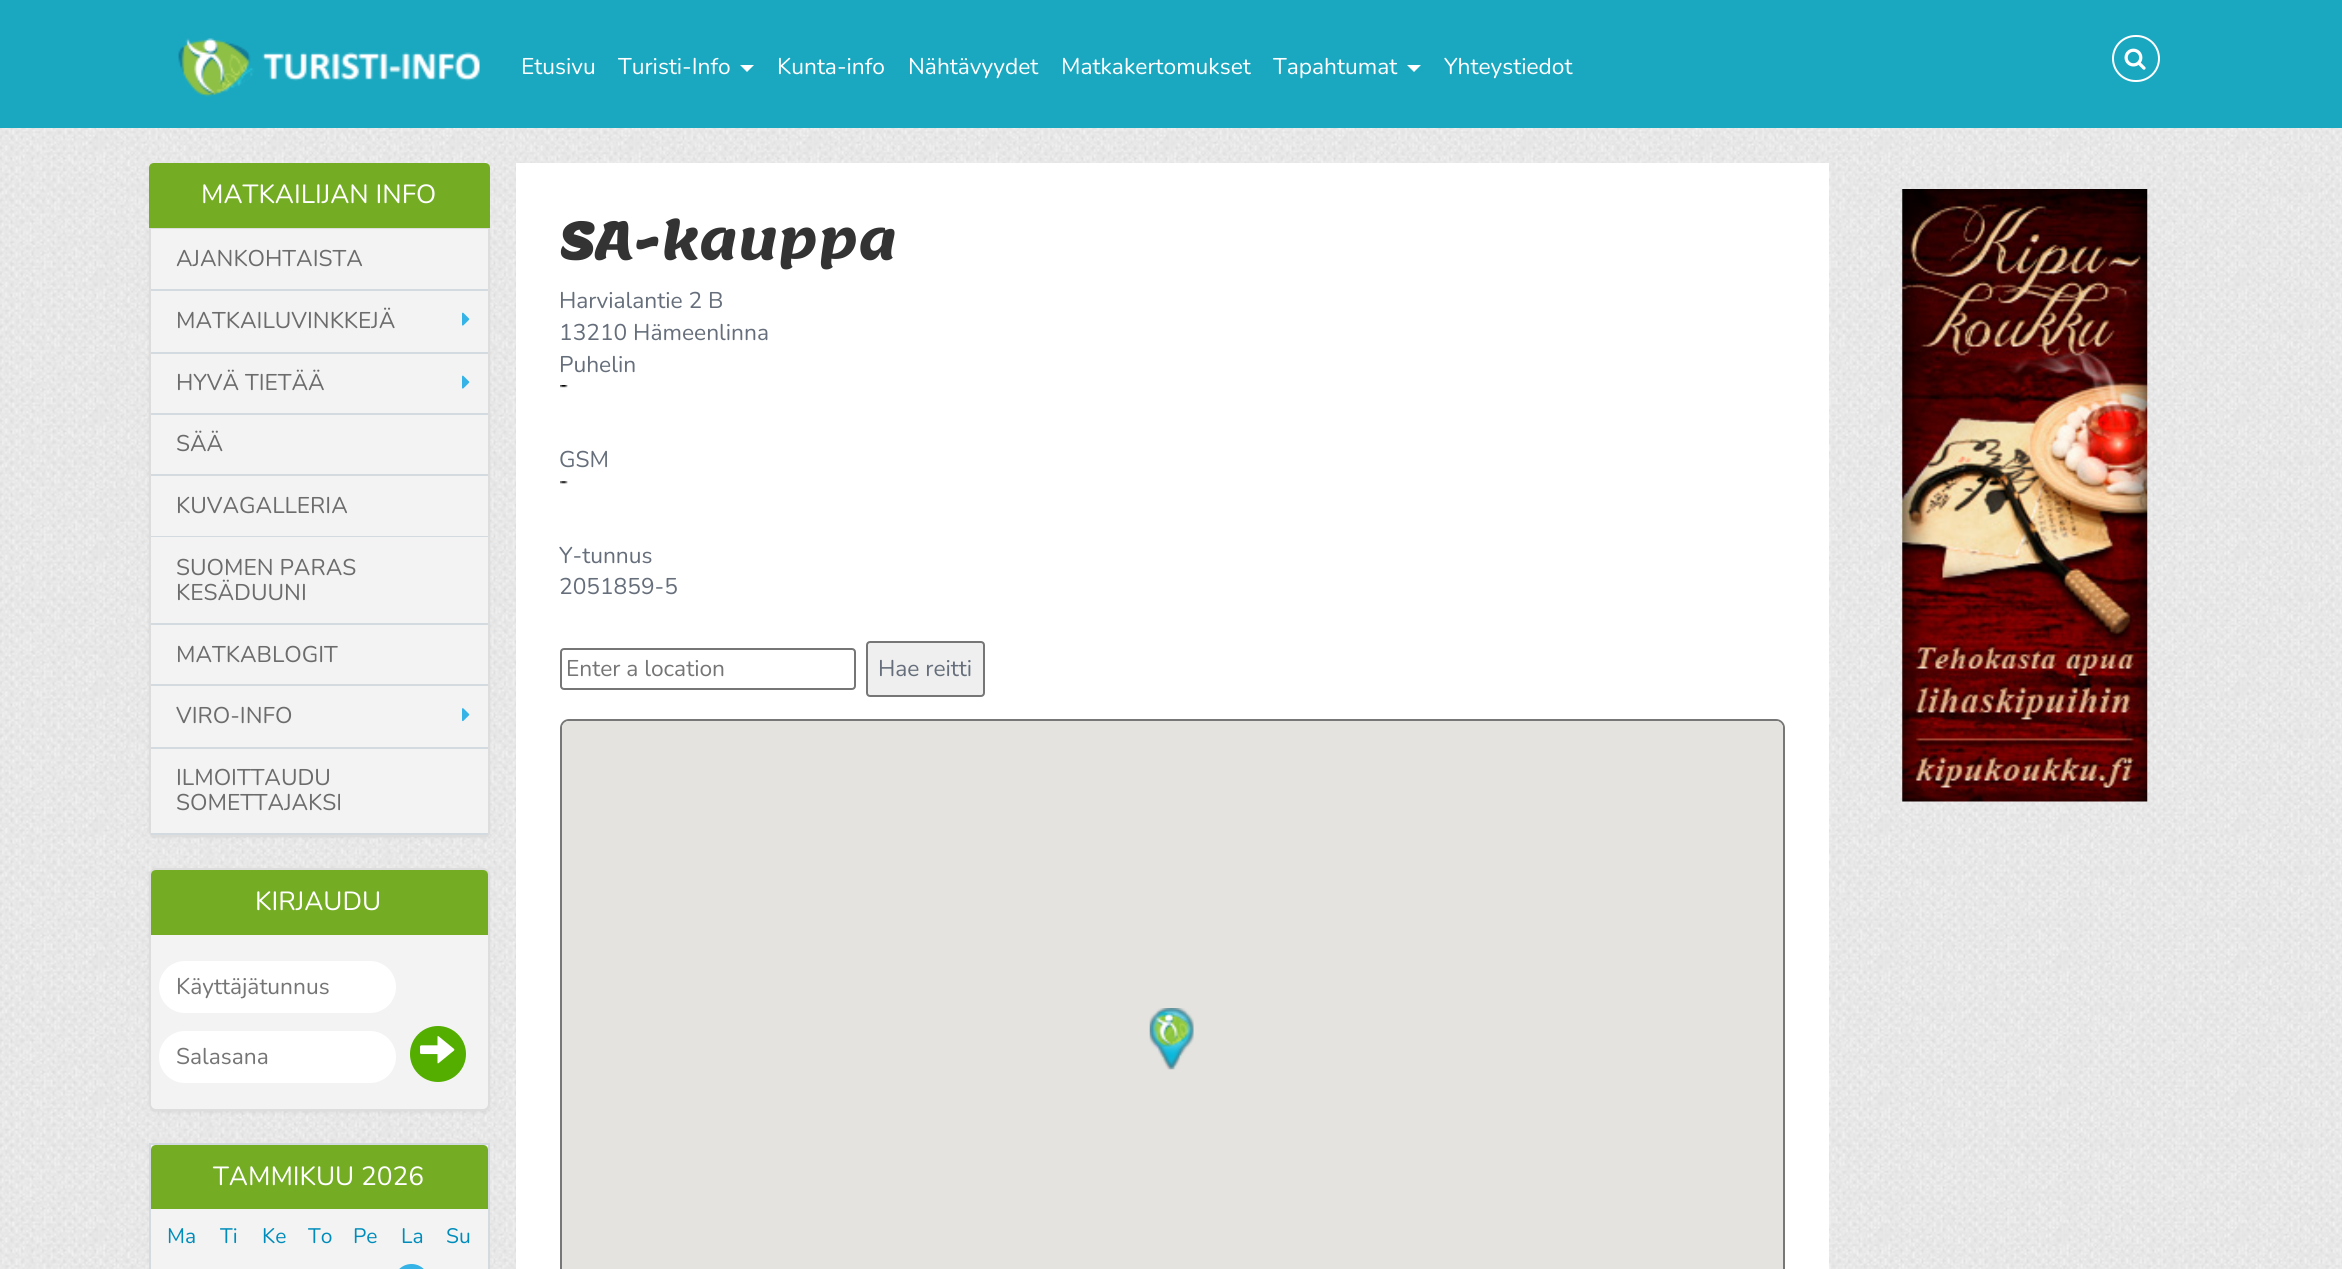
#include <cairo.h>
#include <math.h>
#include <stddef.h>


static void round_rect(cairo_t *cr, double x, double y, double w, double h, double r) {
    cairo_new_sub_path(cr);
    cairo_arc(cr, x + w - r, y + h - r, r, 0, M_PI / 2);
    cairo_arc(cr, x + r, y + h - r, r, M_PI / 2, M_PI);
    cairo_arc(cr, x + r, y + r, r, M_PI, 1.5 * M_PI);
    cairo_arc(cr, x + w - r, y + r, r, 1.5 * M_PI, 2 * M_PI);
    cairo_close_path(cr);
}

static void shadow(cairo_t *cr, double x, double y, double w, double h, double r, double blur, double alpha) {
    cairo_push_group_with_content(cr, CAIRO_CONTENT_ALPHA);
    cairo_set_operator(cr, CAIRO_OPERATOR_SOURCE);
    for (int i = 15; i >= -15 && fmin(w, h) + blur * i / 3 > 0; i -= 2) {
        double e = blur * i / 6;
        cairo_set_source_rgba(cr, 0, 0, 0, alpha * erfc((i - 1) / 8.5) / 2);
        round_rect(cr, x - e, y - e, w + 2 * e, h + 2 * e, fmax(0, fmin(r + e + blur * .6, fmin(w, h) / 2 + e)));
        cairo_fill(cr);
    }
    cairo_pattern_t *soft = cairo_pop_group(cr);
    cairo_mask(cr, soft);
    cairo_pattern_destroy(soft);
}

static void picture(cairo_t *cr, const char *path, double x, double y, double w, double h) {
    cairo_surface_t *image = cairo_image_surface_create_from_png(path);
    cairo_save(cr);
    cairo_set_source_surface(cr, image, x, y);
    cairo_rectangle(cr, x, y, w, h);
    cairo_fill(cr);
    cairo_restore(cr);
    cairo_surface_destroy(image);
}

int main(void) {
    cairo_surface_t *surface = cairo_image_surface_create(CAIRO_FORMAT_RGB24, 2342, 1269);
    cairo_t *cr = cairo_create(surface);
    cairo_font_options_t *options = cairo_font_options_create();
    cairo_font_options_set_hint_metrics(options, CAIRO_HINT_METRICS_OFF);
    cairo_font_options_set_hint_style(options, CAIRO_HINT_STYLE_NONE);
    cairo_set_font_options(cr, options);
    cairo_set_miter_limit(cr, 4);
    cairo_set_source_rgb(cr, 1, 1, 1);
    cairo_paint(cr);
    picture(cr, "img1.png", 0, 128, 2342, 1141);
    cairo_set_source_rgb(cr, 0.102, 0.659, 0.757);
    cairo_rectangle(cr, 0, 0, 2342, 128);
    cairo_fill(cr);
    picture(cr, "img2.png", 178, 38, 302, 59);
    cairo_select_font_face(cr, "Nunito", CAIRO_FONT_SLANT_NORMAL, CAIRO_FONT_WEIGHT_NORMAL);
    cairo_set_font_size(cr, 22.75);
    cairo_set_source_rgb(cr, 1, 1, 1);
    cairo_move_to(cr, 521, 74);
    cairo_show_text(cr, "Etusivu");
    cairo_move_to(cr, 618, 74);
    cairo_show_text(cr, "Turisti-Info");
    cairo_new_path(cr);
    cairo_move_to(cr, 740, 65);
    cairo_line_to(cr, 754, 65);
    cairo_line_to(cr, 747, 72);
    cairo_close_path(cr);
    cairo_fill(cr);
    cairo_move_to(cr, 777, 74);
    cairo_show_text(cr, "Kunta-info");
    cairo_move_to(cr, 908, 74);
    cairo_show_text(cr, "Nähtävyydet");
    cairo_move_to(cr, 1061, 74);
    cairo_show_text(cr, "Matkakertomukset");
    cairo_move_to(cr, 1273, 74);
    cairo_show_text(cr, "Tapahtumat");
    cairo_new_path(cr);
    cairo_move_to(cr, 1407, 65);
    cairo_line_to(cr, 1421, 65);
    cairo_line_to(cr, 1414, 72);
    cairo_close_path(cr);
    cairo_fill(cr);
    cairo_move_to(cr, 1444, 74);
    cairo_show_text(cr, "Yhteystiedot");
    round_rect(cr, 2113, 36, 46, 45, 22.5);
    cairo_stroke(cr);
    picture(cr, "img3.png", 2124, 48, 22, 22);
    cairo_set_source_rgb(cr, 0.455, 0.675, 0.141);
    cairo_new_path(cr);
    cairo_move_to(cr, 154, 163);
    cairo_line_to(cr, 485, 163);
    cairo_curve_to(cr, 488, 163, 490, 165, 490, 168);
    cairo_line_to(cr, 490, 228);
    cairo_line_to(cr, 149, 228);
    cairo_line_to(cr, 149, 168);
    cairo_curve_to(cr, 149, 165, 151, 163, 154, 163);
    cairo_close_path(cr);
    cairo_fill(cr);
    cairo_set_font_size(cr, 26.25);
    cairo_set_source_rgb(cr, 1, 1, 1);
    cairo_move_to(cr, 201, 203);
    cairo_show_text(cr, "MATKAILIJAN INFO");
    cairo_set_source_rgb(cr, 0, 0, 0);
    shadow(cr, 149, 229, 341, 609, 5, 1, 0.05);
    cairo_new_path(cr);
    cairo_move_to(cr, 150, 229);
    cairo_line_to(cr, 489, 229);
    cairo_line_to(cr, 489, 832);
    cairo_curve_to(cr, 489, 834, 487, 836, 485, 836);
    cairo_line_to(cr, 154, 836);
    cairo_curve_to(cr, 152, 836, 150, 834, 150, 832);
    cairo_close_path(cr);
    cairo_set_source_rgb(cr, 0.867, 0.867, 0.867);
    cairo_stroke(cr);
    cairo_set_source_rgb(cr, 0.953, 0.953, 0.953);
    cairo_rectangle(cr, 151, 229, 337, 60);
    cairo_fill(cr);
    cairo_set_source_rgb(cr, 0.831, 0.859, 0.878);
    cairo_rectangle(cr, 151, 289, 337, 2);
    cairo_fill(cr);
    cairo_set_font_size(cr, 22.75);
    cairo_set_source_rgb(cr, 0.424, 0.424, 0.424);
    cairo_move_to(cr, 176, 266);
    cairo_show_text(cr, "AJANKOHTAISTA");
    cairo_set_source_rgb(cr, 0.953, 0.953, 0.953);
    cairo_rectangle(cr, 151, 291, 337, 61);
    cairo_fill(cr);
    cairo_set_source_rgb(cr, 0.831, 0.859, 0.878);
    cairo_rectangle(cr, 151, 352, 337, 2);
    cairo_fill(cr);
    cairo_set_source_rgb(cr, 0.424, 0.424, 0.424);
    cairo_move_to(cr, 176, 328);
    cairo_show_text(cr, "MATKAILUVINKKEJÄ");
    picture(cr, "img4.png", 462, 312, 8, 14);
    cairo_set_source_rgb(cr, 0.953, 0.953, 0.953);
    cairo_rectangle(cr, 151, 354, 337, 59);
    cairo_fill(cr);
    cairo_set_source_rgb(cr, 0.831, 0.859, 0.878);
    cairo_rectangle(cr, 151, 413, 337, 2);
    cairo_fill(cr);
    cairo_set_source_rgb(cr, 0.424, 0.424, 0.424);
    cairo_move_to(cr, 176, 390);
    cairo_show_text(cr, "HYVÄ TIETÄÄ");
    picture(cr, "img4.png", 462, 375, 8, 14);
    cairo_set_source_rgb(cr, 0.953, 0.953, 0.953);
    cairo_rectangle(cr, 151, 415, 337, 59);
    cairo_fill(cr);
    cairo_set_source_rgb(cr, 0.831, 0.859, 0.878);
    cairo_rectangle(cr, 151, 474, 337, 2);
    cairo_fill(cr);
    cairo_set_source_rgb(cr, 0.424, 0.424, 0.424);
    cairo_move_to(cr, 176, 451);
    cairo_show_text(cr, "SÄÄ");
    cairo_set_source_rgb(cr, 0.953, 0.953, 0.953);
    cairo_rectangle(cr, 151, 476, 337, 60);
    cairo_fill(cr);
    cairo_set_source_rgb(cr, 0.831, 0.859, 0.878);
    cairo_rectangle(cr, 151, 536, 337, 1);
    cairo_fill(cr);
    cairo_set_source_rgb(cr, 0.424, 0.424, 0.424);
    cairo_move_to(cr, 176, 513);
    cairo_show_text(cr, "KUVAGALLERIA");
    cairo_set_source_rgb(cr, 0.953, 0.953, 0.953);
    cairo_rectangle(cr, 151, 537, 337, 86);
    cairo_fill(cr);
    cairo_set_source_rgb(cr, 0.831, 0.859, 0.878);
    cairo_rectangle(cr, 151, 623, 337, 2);
    cairo_fill(cr);
    cairo_set_source_rgb(cr, 0.424, 0.424, 0.424);
    cairo_move_to(cr, 176, 575);
    cairo_show_text(cr, "SUOMEN PARAS");
    cairo_move_to(cr, 176, 600);
    cairo_show_text(cr, "KESÄDUUNI");
    cairo_set_source_rgb(cr, 0.953, 0.953, 0.953);
    cairo_rectangle(cr, 151, 625, 337, 59);
    cairo_fill(cr);
    cairo_set_source_rgb(cr, 0.831, 0.859, 0.878);
    cairo_rectangle(cr, 151, 684, 337, 2);
    cairo_fill(cr);
    cairo_set_source_rgb(cr, 0.424, 0.424, 0.424);
    cairo_move_to(cr, 176, 662);
    cairo_show_text(cr, "MATKABLOGIT");
    cairo_set_source_rgb(cr, 0.953, 0.953, 0.953);
    cairo_rectangle(cr, 151, 686, 337, 61);
    cairo_fill(cr);
    cairo_set_source_rgb(cr, 0.831, 0.859, 0.878);
    cairo_rectangle(cr, 151, 747, 337, 2);
    cairo_fill(cr);
    cairo_set_source_rgb(cr, 0.424, 0.424, 0.424);
    cairo_move_to(cr, 176, 723);
    cairo_show_text(cr, "VIRO-INFO");
    picture(cr, "img5.png", 462, 708, 8, 14);
    cairo_set_source_rgb(cr, 0.953, 0.953, 0.953);
    cairo_rectangle(cr, 151, 749, 337, 84);
    cairo_fill(cr);
    cairo_set_source_rgb(cr, 0.831, 0.859, 0.878);
    cairo_rectangle(cr, 151, 833, 337, 2);
    cairo_fill(cr);
    cairo_set_source_rgb(cr, 0.424, 0.424, 0.424);
    cairo_move_to(cr, 176, 785);
    cairo_show_text(cr, "ILMOITTAUDU");
    cairo_move_to(cr, 176, 810);
    cairo_show_text(cr, "SOMETTAJAKSI");
    cairo_set_source_rgb(cr, 0, 0, 0);
    shadow(cr, 149, 870, 341, 243, 7, 1, 0.05);
    cairo_set_source_rgb(cr, 0.953, 0.953, 0.953);
    round_rect(cr, 150, 869, 339, 241, 6);
    cairo_fill_preserve(cr);
    cairo_set_source_rgb(cr, 0.867, 0.867, 0.867);
    cairo_stroke(cr);
    cairo_set_source_rgb(cr, 0.455, 0.675, 0.141);
    cairo_new_path(cr);
    cairo_move_to(cr, 156, 870);
    cairo_line_to(cr, 483, 870);
    cairo_curve_to(cr, 486, 870, 488, 872, 488, 875);
    cairo_line_to(cr, 488, 935);
    cairo_line_to(cr, 151, 935);
    cairo_line_to(cr, 151, 875);
    cairo_curve_to(cr, 151, 872, 153, 870, 156, 870);
    cairo_close_path(cr);
    cairo_fill(cr);
    cairo_set_font_size(cr, 26.25);
    cairo_set_source_rgb(cr, 1, 1, 1);
    cairo_move_to(cr, 255, 910);
    cairo_show_text(cr, "KIRJAUDU");
    round_rect(cr, 159, 961, 237, 52, 26);
    cairo_fill(cr);
    cairo_set_font_size(cr, 22.75);
    cairo_set_source_rgb(cr, 0.459, 0.459, 0.459);
    cairo_move_to(cr, 176, 994);
    cairo_show_text(cr, "Käyttäjätunnus");
    cairo_set_source_rgb(cr, 1, 1, 1);
    round_rect(cr, 159, 1031, 237, 52, 26);
    cairo_fill(cr);
    cairo_set_source_rgb(cr, 0.459, 0.459, 0.459);
    cairo_move_to(cr, 176, 1064);
    cairo_show_text(cr, "Salasana");
    cairo_set_source_rgb(cr, 0.329, 0.682, 0);
    cairo_new_path(cr);
    cairo_arc(cr, 438, 1054, 28, 0, 2 * M_PI);
    cairo_fill(cr);
    picture(cr, "img6.png", 420, 1036, 35, 28);
    cairo_set_source_rgb(cr, 0.953, 0.953, 0.953);
    cairo_rectangle(cr, 150, 1144, 339, 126);
    cairo_fill_preserve(cr);
    cairo_set_source_rgb(cr, 0.831, 0.859, 0.878);
    cairo_stroke(cr);
    cairo_set_source_rgb(cr, 0.455, 0.675, 0.141);
    cairo_new_path(cr);
    cairo_move_to(cr, 156, 1145);
    cairo_line_to(cr, 483, 1145);
    cairo_curve_to(cr, 486, 1145, 488, 1147, 488, 1150);
    cairo_line_to(cr, 488, 1209);
    cairo_line_to(cr, 151, 1209);
    cairo_line_to(cr, 151, 1150);
    cairo_curve_to(cr, 151, 1147, 153, 1145, 156, 1145);
    cairo_close_path(cr);
    cairo_fill(cr);
    cairo_set_font_size(cr, 26.25);
    cairo_set_source_rgb(cr, 1, 1, 1);
    cairo_move_to(cr, 213, 1185);
    cairo_show_text(cr, "TAMMIKUU 2026");
    cairo_set_font_size(cr, 21);
    cairo_set_source_rgb(cr, 0, 0.549, 0.729);
    cairo_move_to(cr, 167, 1243);
    cairo_show_text(cr, "Ma");
    cairo_move_to(cr, 220, 1243);
    cairo_show_text(cr, "Ti");
    cairo_move_to(cr, 262, 1243);
    cairo_show_text(cr, "Ke");
    cairo_move_to(cr, 308, 1243);
    cairo_show_text(cr, "To");
    cairo_move_to(cr, 353, 1243);
    cairo_show_text(cr, "Pe");
    cairo_move_to(cr, 401, 1243);
    cairo_show_text(cr, "La");
    cairo_move_to(cr, 446, 1243);
    cairo_show_text(cr, "Su");
    cairo_set_source_rgb(cr, 0.208, 0.698, 0.902);
    round_rect(cr, 394, 1264, 35, 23, 17.5);
    cairo_fill(cr);
    cairo_set_source_rgb(cr, 1, 1, 1);
    cairo_rectangle(cr, 516, 163, 1313, 1106);
    cairo_fill(cr);
    cairo_select_font_face(cr, "Lemon", CAIRO_FONT_SLANT_NORMAL, CAIRO_FONT_WEIGHT_NORMAL);
    cairo_set_font_size(cr, 52.5);
    cairo_set_source_rgb(cr, 0.2, 0.2, 0.2);
    cairo_move_to(cr, 559, 259);
    cairo_show_text(cr, "SA-kauppa");
    cairo_select_font_face(cr, "Nunito", CAIRO_FONT_SLANT_NORMAL, CAIRO_FONT_WEIGHT_NORMAL);
    cairo_set_font_size(cr, 22.75);
    cairo_set_source_rgb(cr, 0.396, 0.431, 0.478);
    cairo_move_to(cr, 559, 308);
    cairo_show_text(cr, "Harvialantie 2 B");
    cairo_move_to(cr, 559, 340);
    cairo_show_text(cr, "13210 Hämeenlinna");
    cairo_move_to(cr, 559, 372);
    cairo_show_text(cr, "Puhelin");
    picture(cr, "img7.png", 560, 385, 8, 3);
    cairo_move_to(cr, 559, 467);
    cairo_show_text(cr, "GSM");
    picture(cr, "img8.png", 560, 481, 8, 3);
    cairo_move_to(cr, 559, 563);
    cairo_show_text(cr, "Y-tunnus");
    cairo_move_to(cr, 559, 594);
    cairo_show_text(cr, "2051859-5");
    round_rect(cr, 561, 649, 294, 40, 3);
    cairo_set_source_rgb(cr, 0.463, 0.463, 0.463);
    cairo_stroke(cr);
    cairo_set_source_rgb(cr, 0.459, 0.459, 0.459);
    cairo_move_to(cr, 566, 676);
    cairo_show_text(cr, "Enter a location");
    cairo_set_source_rgb(cr, 0.937, 0.937, 0.937);
    round_rect(cr, 867, 642, 117, 54, 3);
    cairo_fill_preserve(cr);
    cairo_set_source_rgb(cr, 0.463, 0.463, 0.463);
    cairo_stroke(cr);
    cairo_set_source_rgb(cr, 0.396, 0.431, 0.478);
    cairo_move_to(cr, 878, 676);
    cairo_show_text(cr, "Hae reitti");
    round_rect(cr, 561, 720, 1223, 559, 8);
    cairo_set_source_rgb(cr, 0.467, 0.467, 0.467);
    cairo_stroke(cr);
    cairo_set_source_rgb(cr, 0.898, 0.89, 0.875);
    round_rect(cr, 562, 721, 1221, 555, 7);
    cairo_fill(cr);
    picture(cr, "img9.png", 1149, 1008, 45, 62);
    picture(cr, "img10.png", 1902, 189, 246, 613);
    cairo_surface_write_to_png(surface, "page.png");
    cairo_font_options_destroy(options);
    cairo_destroy(cr);
    cairo_surface_destroy(surface);
    return 0;
}
